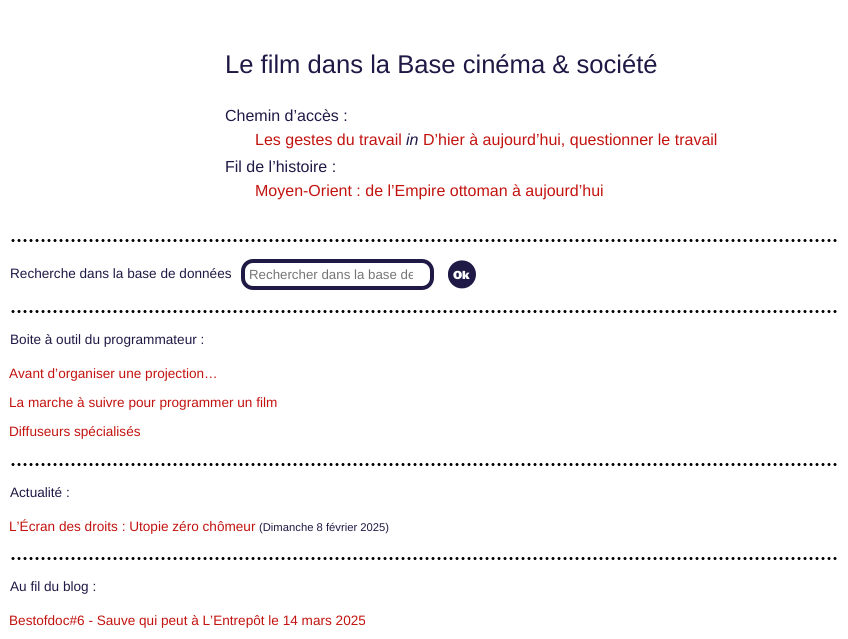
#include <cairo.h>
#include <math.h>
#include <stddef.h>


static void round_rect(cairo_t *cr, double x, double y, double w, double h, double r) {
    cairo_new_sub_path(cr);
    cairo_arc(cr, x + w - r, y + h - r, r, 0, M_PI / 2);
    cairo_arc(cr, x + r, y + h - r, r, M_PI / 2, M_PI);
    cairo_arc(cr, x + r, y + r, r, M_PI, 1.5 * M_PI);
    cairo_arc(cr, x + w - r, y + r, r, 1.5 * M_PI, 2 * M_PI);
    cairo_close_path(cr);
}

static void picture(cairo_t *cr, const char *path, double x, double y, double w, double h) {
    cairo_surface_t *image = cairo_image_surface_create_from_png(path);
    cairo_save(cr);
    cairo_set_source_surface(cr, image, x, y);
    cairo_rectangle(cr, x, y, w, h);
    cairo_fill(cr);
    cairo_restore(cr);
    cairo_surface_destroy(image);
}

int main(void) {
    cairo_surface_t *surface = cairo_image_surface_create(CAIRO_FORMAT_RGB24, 848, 639);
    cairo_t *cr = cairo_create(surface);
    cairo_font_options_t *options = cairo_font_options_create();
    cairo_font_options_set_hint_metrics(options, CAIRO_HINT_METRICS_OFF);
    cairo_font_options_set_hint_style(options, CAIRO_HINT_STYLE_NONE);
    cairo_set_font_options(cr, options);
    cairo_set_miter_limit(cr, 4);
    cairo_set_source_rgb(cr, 1, 1, 1);
    cairo_paint(cr);
    cairo_select_font_face(cr, "Liberation Sans", CAIRO_FONT_SLANT_NORMAL, CAIRO_FONT_WEIGHT_NORMAL);
    cairo_set_font_size(cr, 25.6);
    cairo_set_source_rgb(cr, 0.122, 0.098, 0.271);
    cairo_move_to(cr, 225, 73);
    cairo_show_text(cr, "Le film dans la Base cinéma & société");
    cairo_set_font_size(cr, 16);
    cairo_move_to(cr, 225, 121);
    cairo_show_text(cr, "Chemin d’accès :");
    cairo_set_source_rgb(cr, 0.761, 0.075, 0.059);
    cairo_move_to(cr, 255, 145);
    cairo_show_text(cr, "Les gestes du travail");
    cairo_select_font_face(cr, "Liberation Sans", CAIRO_FONT_SLANT_ITALIC, CAIRO_FONT_WEIGHT_NORMAL);
    cairo_set_source_rgb(cr, 0.122, 0.098, 0.271);
    cairo_move_to(cr, 406, 145);
    cairo_show_text(cr, "in");
    cairo_select_font_face(cr, "Liberation Sans", CAIRO_FONT_SLANT_NORMAL, CAIRO_FONT_WEIGHT_NORMAL);
    cairo_set_source_rgb(cr, 0.761, 0.075, 0.059);
    cairo_move_to(cr, 423, 145);
    cairo_show_text(cr, "D’hier à aujourd’hui, questionner le travail");
    cairo_set_source_rgb(cr, 0.122, 0.098, 0.271);
    cairo_move_to(cr, 225, 172);
    cairo_show_text(cr, "Fil de l’histoire :");
    cairo_set_source_rgb(cr, 0.761, 0.075, 0.059);
    cairo_move_to(cr, 255, 196);
    cairo_show_text(cr, "Moyen-Orient : de l’Empire ottoman à aujourd’hui");
    picture(cr, "img1.png", 11, 239, 826, 3);
    cairo_set_font_size(cr, 13.6);
    cairo_set_source_rgb(cr, 0.122, 0.098, 0.271);
    cairo_move_to(cr, 10, 278);
    cairo_show_text(cr, "Recherche dans la base de données");
    round_rect(cr, 243, 261, 189, 27, 10);
    cairo_set_line_width(cr, 4);
    cairo_stroke(cr);
    cairo_save(cr);
    cairo_rectangle(cr, 249, 267, 164, 15);
    cairo_clip(cr);
    cairo_set_font_size(cr, 13.3);
    cairo_set_source_rgb(cr, 0.459, 0.459, 0.459);
    cairo_move_to(cr, 249, 279);
    cairo_show_text(cr, "Rechercher dans la base de");
    cairo_restore(cr);
    picture(cr, "img2.png", 448, 260, 29, 29);
    picture(cr, "img1.png", 11, 310, 826, 3);
    cairo_move_to(cr, 10, 344);
    cairo_show_text(cr, "Boite à outil du programmateur :");
    cairo_set_source_rgb(cr, 0.761, 0.075, 0.059);
    cairo_move_to(cr, 9, 378);
    cairo_show_text(cr, "Avant d’organiser une projection…");
    cairo_move_to(cr, 9, 407);
    cairo_show_text(cr, "La marche à suivre pour programmer un film");
    cairo_move_to(cr, 9, 436);
    cairo_show_text(cr, "Diffuseurs spécialisés");
    picture(cr, "img1.png", 11, 463, 826, 3);
    cairo_set_source_rgb(cr, 0.122, 0.098, 0.271);
    cairo_move_to(cr, 10, 497);
    cairo_show_text(cr, "Actualité :");
    cairo_set_source_rgb(cr, 0.761, 0.075, 0.059);
    cairo_move_to(cr, 9, 531);
    cairo_show_text(cr, "L’Écran des droits : Utopie zéro chômeur");
    cairo_set_font_size(cr, 11.25);
    cairo_set_source_rgb(cr, 0.122, 0.098, 0.271);
    cairo_move_to(cr, 259, 531);
    cairo_show_text(cr, "(Dimanche 8 février 2025)");
    picture(cr, "img1.png", 11, 557, 826, 3);
    cairo_set_font_size(cr, 13.6);
    cairo_move_to(cr, 10, 591);
    cairo_show_text(cr, "Au fil du blog :");
    cairo_set_source_rgb(cr, 0.761, 0.075, 0.059);
    cairo_move_to(cr, 9, 625);
    cairo_show_text(cr, "Bestofdoc#6 - Sauve qui peut à L’Entrepôt le 14 mars 2025");
    cairo_surface_write_to_png(surface, "page.png");
    cairo_font_options_destroy(options);
    cairo_destroy(cr);
    cairo_surface_destroy(surface);
    return 0;
}
